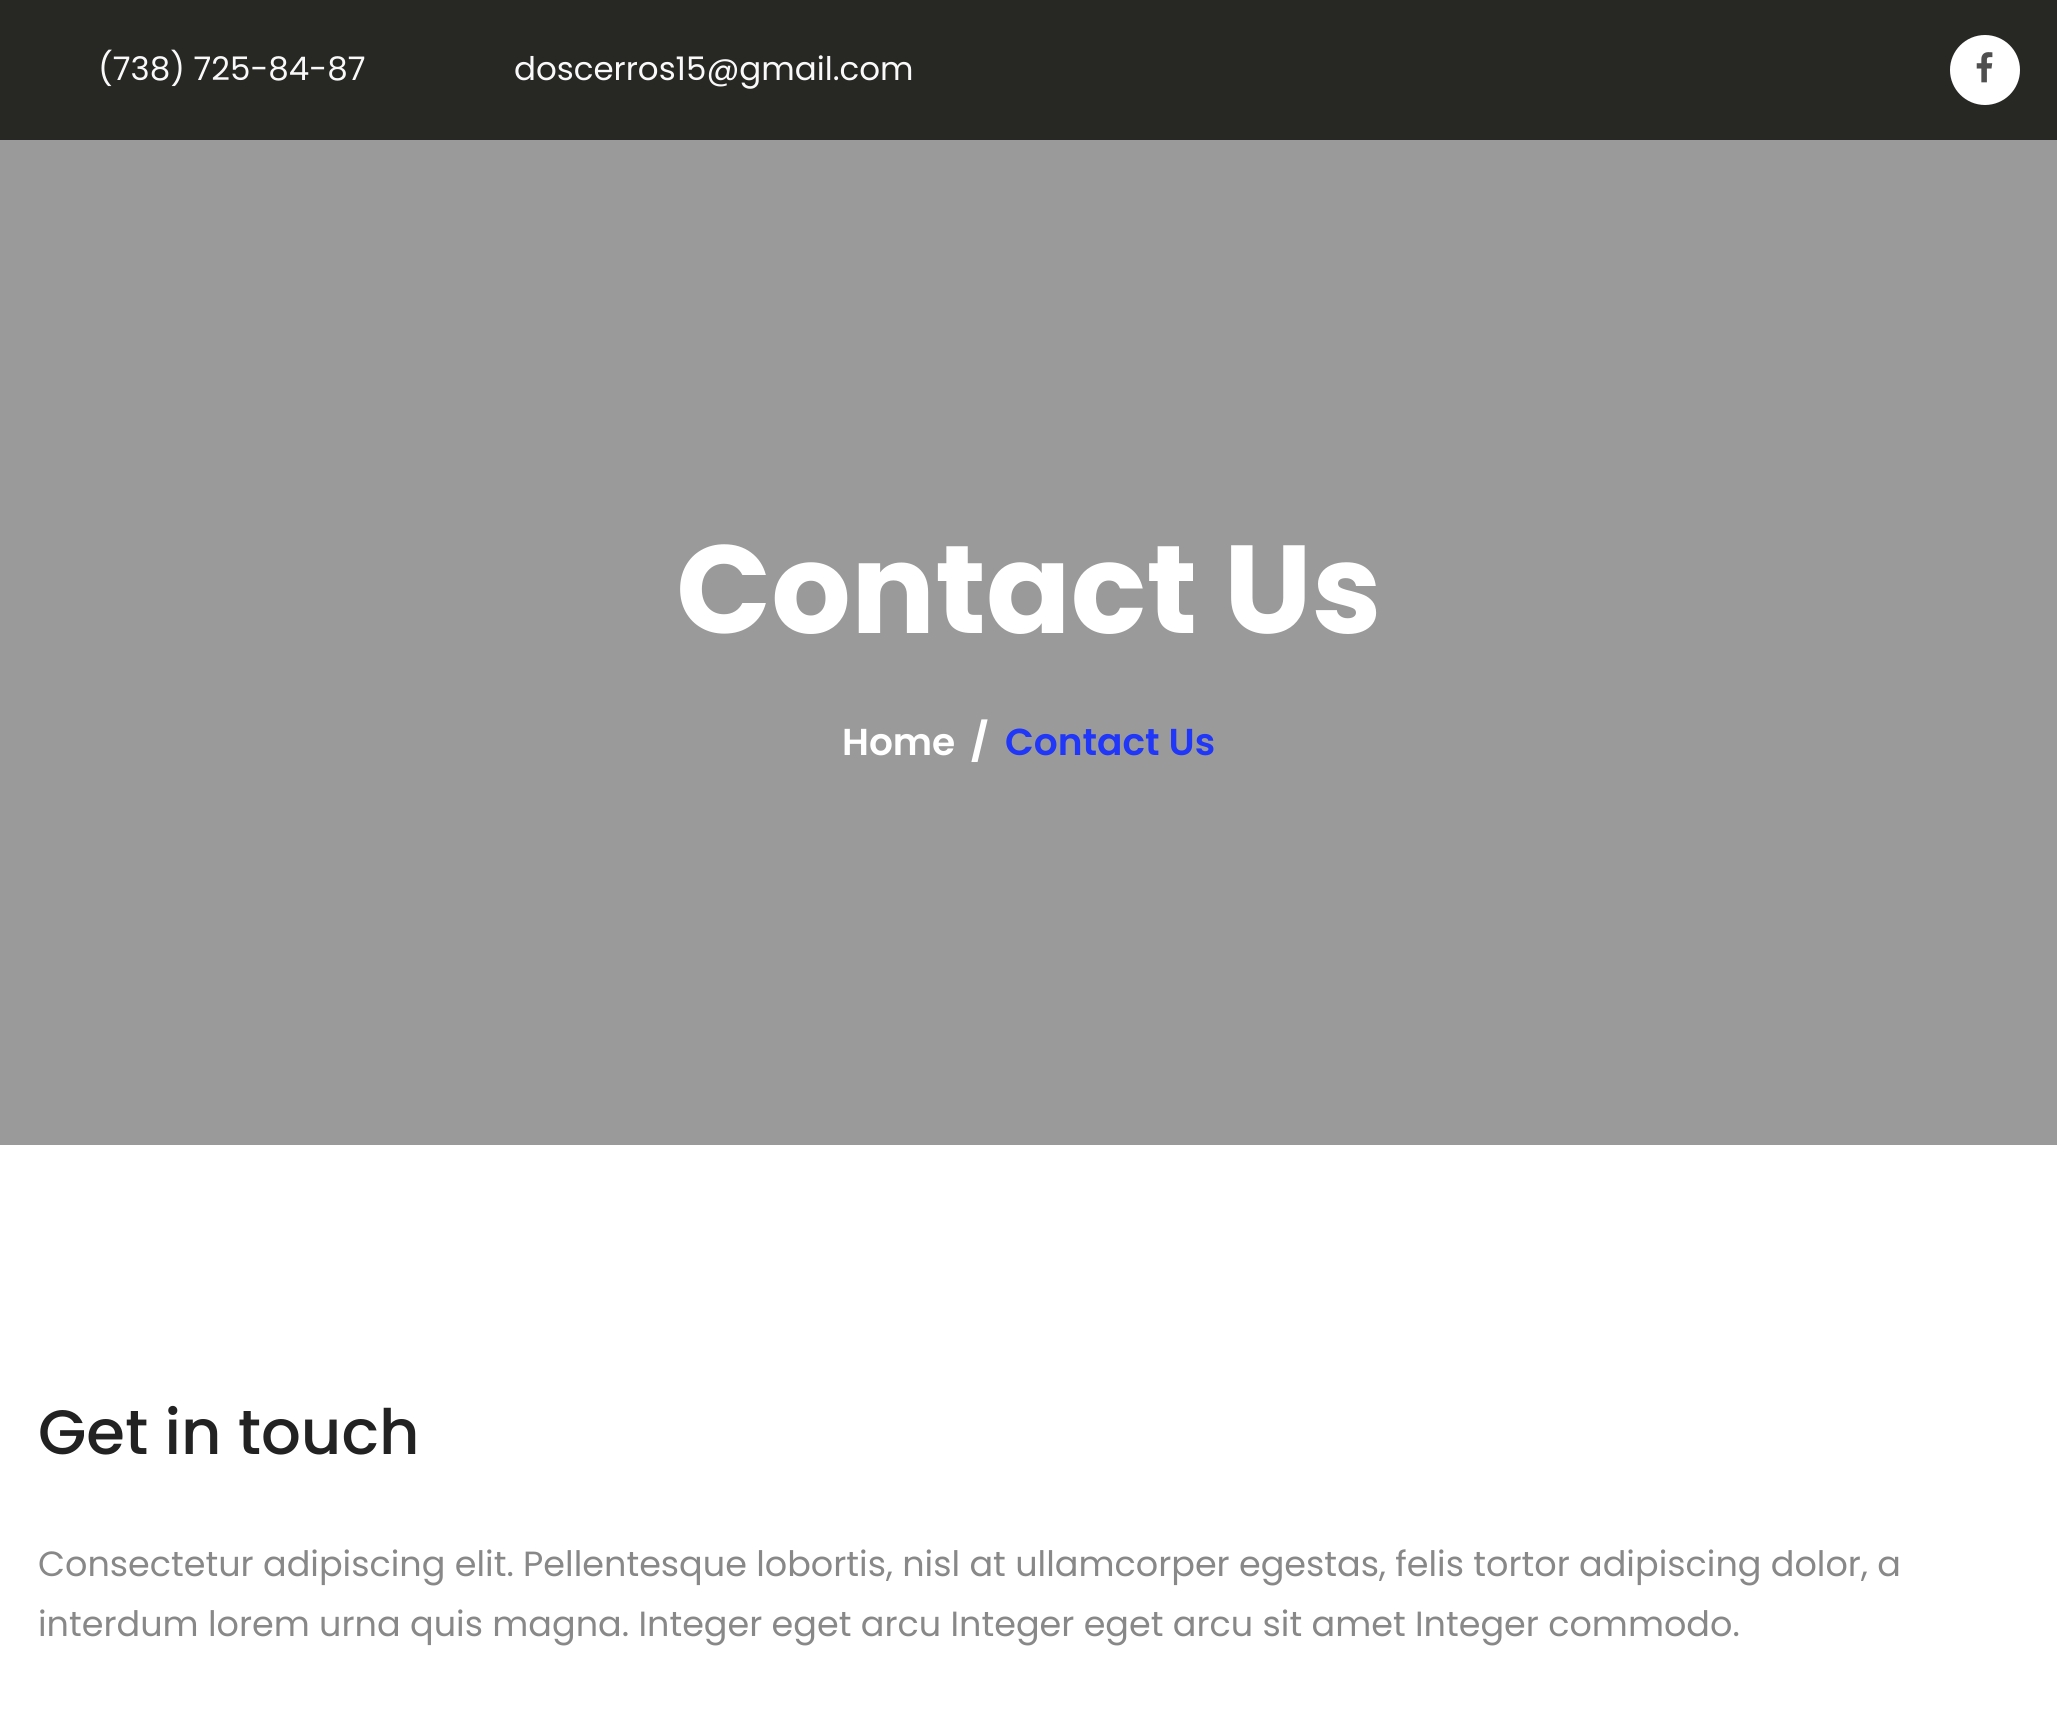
#include <cairo.h>
#include <math.h>
#include <stddef.h>


static void picture(cairo_t *cr, const char *path, double x, double y, double w, double h) {
    cairo_surface_t *image = cairo_image_surface_create_from_png(path);
    cairo_save(cr);
    cairo_set_source_surface(cr, image, x, y);
    cairo_rectangle(cr, x, y, w, h);
    cairo_fill(cr);
    cairo_restore(cr);
    cairo_surface_destroy(image);
}

int main(void) {
    cairo_surface_t *surface = cairo_image_surface_create(CAIRO_FORMAT_RGB24, 2057, 1711);
    cairo_t *cr = cairo_create(surface);
    cairo_font_options_t *options = cairo_font_options_create();
    cairo_font_options_set_hint_metrics(options, CAIRO_HINT_METRICS_OFF);
    cairo_font_options_set_hint_style(options, CAIRO_HINT_STYLE_NONE);
    cairo_set_font_options(cr, options);
    cairo_set_miter_limit(cr, 4);
    cairo_set_source_rgb(cr, 1, 1, 1);
    cairo_paint(cr);
    cairo_set_source_rgb(cr, 0.153, 0.157, 0.141);
    cairo_rectangle(cr, 0, 0, 2057, 140);
    cairo_fill(cr);
    cairo_select_font_face(cr, "Poppins", CAIRO_FONT_SLANT_NORMAL, CAIRO_FONT_WEIGHT_NORMAL);
    cairo_set_font_size(cr, 32.5);
    cairo_set_source_rgb(cr, 0.976, 0.976, 0.976);
    cairo_move_to(cr, 98, 80);
    cairo_show_text(cr, "(738) 725-84-87");
    cairo_move_to(cr, 514, 80);
    cairo_show_text(cr, "doscerros15@gmail.com");
    cairo_set_source_rgb(cr, 1, 1, 1);
    cairo_new_path(cr);
    cairo_arc(cr, 1985, 70, 35, 0, 2 * M_PI);
    cairo_fill(cr);
    picture(cr, "img1.png", 1976, 52, 17, 31);
    cairo_set_source_rgb(cr, 0.604, 0.604, 0.604);
    cairo_rectangle(cr, 0, 140, 2057, 1005);
    cairo_fill(cr);
    cairo_select_font_face(cr, "Poppins", CAIRO_FONT_SLANT_NORMAL, CAIRO_FONT_WEIGHT_BOLD);
    cairo_set_font_size(cr, 125);
    cairo_set_source_rgb(cr, 1, 1, 1);
    cairo_move_to(cr, 676, 633);
    cairo_show_text(cr, "Contact Us");
    cairo_select_font_face(cr, "Poppins SemiBold", CAIRO_FONT_SLANT_NORMAL, CAIRO_FONT_WEIGHT_NORMAL);
    cairo_set_font_size(cr, 37.5);
    cairo_move_to(cr, 842, 755);
    cairo_show_text(cr, "Home");
    cairo_select_font_face(cr, "Poppins", CAIRO_FONT_SLANT_NORMAL, CAIRO_FONT_WEIGHT_BOLD);
    cairo_move_to(cr, 971, 755);
    cairo_show_text(cr, "/");
    cairo_select_font_face(cr, "Poppins SemiBold", CAIRO_FONT_SLANT_NORMAL, CAIRO_FONT_WEIGHT_NORMAL);
    cairo_set_source_rgb(cr, 0.125, 0.212, 0.969);
    cairo_move_to(cr, 1005, 755);
    cairo_show_text(cr, "Contact Us");
    cairo_select_font_face(cr, "Poppins Medium", CAIRO_FONT_SLANT_NORMAL, CAIRO_FONT_WEIGHT_NORMAL);
    cairo_set_font_size(cr, 62.5);
    cairo_set_source_rgb(cr, 0.133, 0.133, 0.133);
    cairo_move_to(cr, 38, 1454);
    cairo_show_text(cr, "Get in touch");
    cairo_select_font_face(cr, "Poppins", CAIRO_FONT_SLANT_NORMAL, CAIRO_FONT_WEIGHT_NORMAL);
    cairo_set_font_size(cr, 35);
    cairo_set_source_rgb(cr, 0.533, 0.533, 0.533);
    cairo_move_to(cr, 38, 1576);
    cairo_show_text(cr, "Consectetur adipiscing elit. Pellentesque lobortis, nisl at ullamcorper egestas, felis tortor adipiscing dolor, a");
    cairo_move_to(cr, 38, 1636);
    cairo_show_text(cr, "interdum lorem urna quis magna. Integer eget arcu Integer eget arcu sit amet Integer commodo.");
    cairo_surface_write_to_png(surface, "page.png");
    cairo_font_options_destroy(options);
    cairo_destroy(cr);
    cairo_surface_destroy(surface);
    return 0;
}
